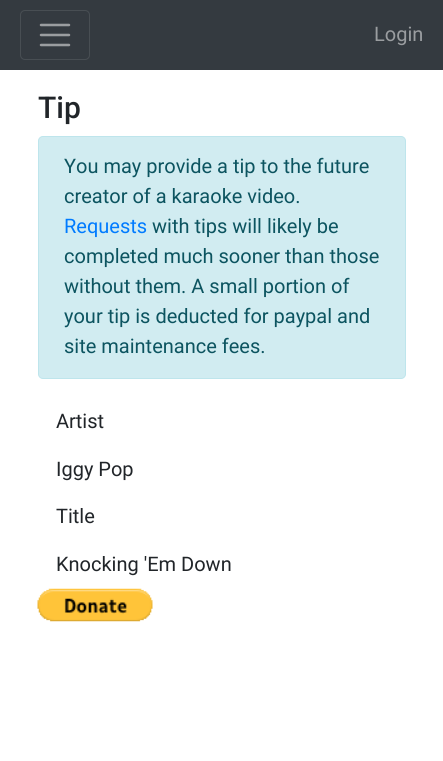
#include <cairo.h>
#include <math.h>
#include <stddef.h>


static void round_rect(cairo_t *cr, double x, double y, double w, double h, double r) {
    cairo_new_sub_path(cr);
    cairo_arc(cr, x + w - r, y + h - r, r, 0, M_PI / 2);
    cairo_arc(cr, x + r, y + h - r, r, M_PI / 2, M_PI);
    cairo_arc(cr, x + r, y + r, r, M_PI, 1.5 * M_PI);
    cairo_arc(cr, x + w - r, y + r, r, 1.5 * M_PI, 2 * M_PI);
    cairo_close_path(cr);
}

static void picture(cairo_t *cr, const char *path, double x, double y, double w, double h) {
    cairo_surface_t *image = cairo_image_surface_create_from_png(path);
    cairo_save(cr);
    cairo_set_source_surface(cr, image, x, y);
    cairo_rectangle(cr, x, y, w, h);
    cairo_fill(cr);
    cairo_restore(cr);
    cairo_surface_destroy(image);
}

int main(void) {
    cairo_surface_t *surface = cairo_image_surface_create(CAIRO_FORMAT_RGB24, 443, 761);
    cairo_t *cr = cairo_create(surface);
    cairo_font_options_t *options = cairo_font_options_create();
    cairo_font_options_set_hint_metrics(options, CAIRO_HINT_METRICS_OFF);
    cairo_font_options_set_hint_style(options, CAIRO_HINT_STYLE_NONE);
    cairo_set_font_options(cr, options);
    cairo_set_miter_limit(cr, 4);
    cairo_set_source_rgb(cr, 1, 1, 1);
    cairo_paint(cr);
    cairo_set_source_rgb(cr, 0.204, 0.227, 0.251);
    cairo_rectangle(cr, 0, 0, 443, 70);
    cairo_fill(cr);
    round_rect(cr, 20.5, 10.5, 69, 49, 4.5);
    cairo_set_source_rgb(cr, 0.282, 0.306, 0.325);
    cairo_set_line_width(cr, 1);
    cairo_stroke(cr);
    cairo_new_path(cr);
    cairo_move_to(cr, 41, 25);
    cairo_line_to(cr, 69, 25);
    cairo_move_to(cr, 41, 35);
    cairo_line_to(cr, 69, 35);
    cairo_move_to(cr, 41, 45);
    cairo_line_to(cr, 69, 45);
    cairo_set_source_rgb(cr, 0.604, 0.616, 0.627);
    cairo_set_line_width(cr, 2.5);
    cairo_set_line_cap(cr, CAIRO_LINE_CAP_ROUND);
    cairo_stroke(cr);
    cairo_select_font_face(cr, "Roboto", CAIRO_FONT_SLANT_NORMAL, CAIRO_FONT_WEIGHT_NORMAL);
    cairo_set_font_size(cr, 20);
    cairo_move_to(cr, 374, 41);
    cairo_show_text(cr, "Login");
    cairo_select_font_face(cr, "Roboto Medium", CAIRO_FONT_SLANT_NORMAL, CAIRO_FONT_WEIGHT_NORMAL);
    cairo_set_font_size(cr, 30);
    cairo_set_source_rgb(cr, 0.129, 0.145, 0.161);
    cairo_move_to(cr, 38, 118);
    cairo_show_text(cr, "Tip");
    cairo_set_source_rgb(cr, 0.82, 0.925, 0.945);
    round_rect(cr, 38.5, 136.5, 367, 242, 4.5);
    cairo_fill_preserve(cr);
    cairo_set_source_rgb(cr, 0.745, 0.898, 0.922);
    cairo_set_line_width(cr, 1);
    cairo_set_line_cap(cr, CAIRO_LINE_CAP_BUTT);
    cairo_stroke(cr);
    cairo_select_font_face(cr, "Roboto", CAIRO_FONT_SLANT_NORMAL, CAIRO_FONT_WEIGHT_NORMAL);
    cairo_set_font_size(cr, 20);
    cairo_set_source_rgb(cr, 0.047, 0.329, 0.376);
    cairo_move_to(cr, 64, 173);
    cairo_show_text(cr, "You may provide a tip to the future");
    cairo_move_to(cr, 64, 203);
    cairo_show_text(cr, "creator of a karaoke video.");
    cairo_set_source_rgb(cr, 0, 0.482, 1);
    cairo_move_to(cr, 64, 233);
    cairo_show_text(cr, "Requests");
    cairo_set_source_rgb(cr, 0.047, 0.329, 0.376);
    cairo_move_to(cr, 152, 233);
    cairo_show_text(cr, "with tips will likely be");
    cairo_move_to(cr, 64, 263);
    cairo_show_text(cr, "completed much sooner than those");
    cairo_move_to(cr, 64, 293);
    cairo_show_text(cr, "without them. A small portion of");
    cairo_move_to(cr, 64, 323);
    cairo_show_text(cr, "your tip is deducted for paypal and");
    cairo_move_to(cr, 64, 353);
    cairo_show_text(cr, "site maintenance fees.");
    cairo_set_source_rgb(cr, 0.129, 0.145, 0.161);
    cairo_move_to(cr, 56, 428);
    cairo_show_text(cr, "Artist");
    cairo_move_to(cr, 56, 476);
    cairo_show_text(cr, "Iggy Pop");
    cairo_move_to(cr, 56, 523);
    cairo_show_text(cr, "Title");
    cairo_move_to(cr, 56, 571);
    cairo_show_text(cr, "Knocking 'Em Down");
    picture(cr, "img1.png", 37, 588, 116, 34);
    cairo_surface_write_to_png(surface, "page.png");
    cairo_font_options_destroy(options);
    cairo_destroy(cr);
    cairo_surface_destroy(surface);
    return 0;
}
